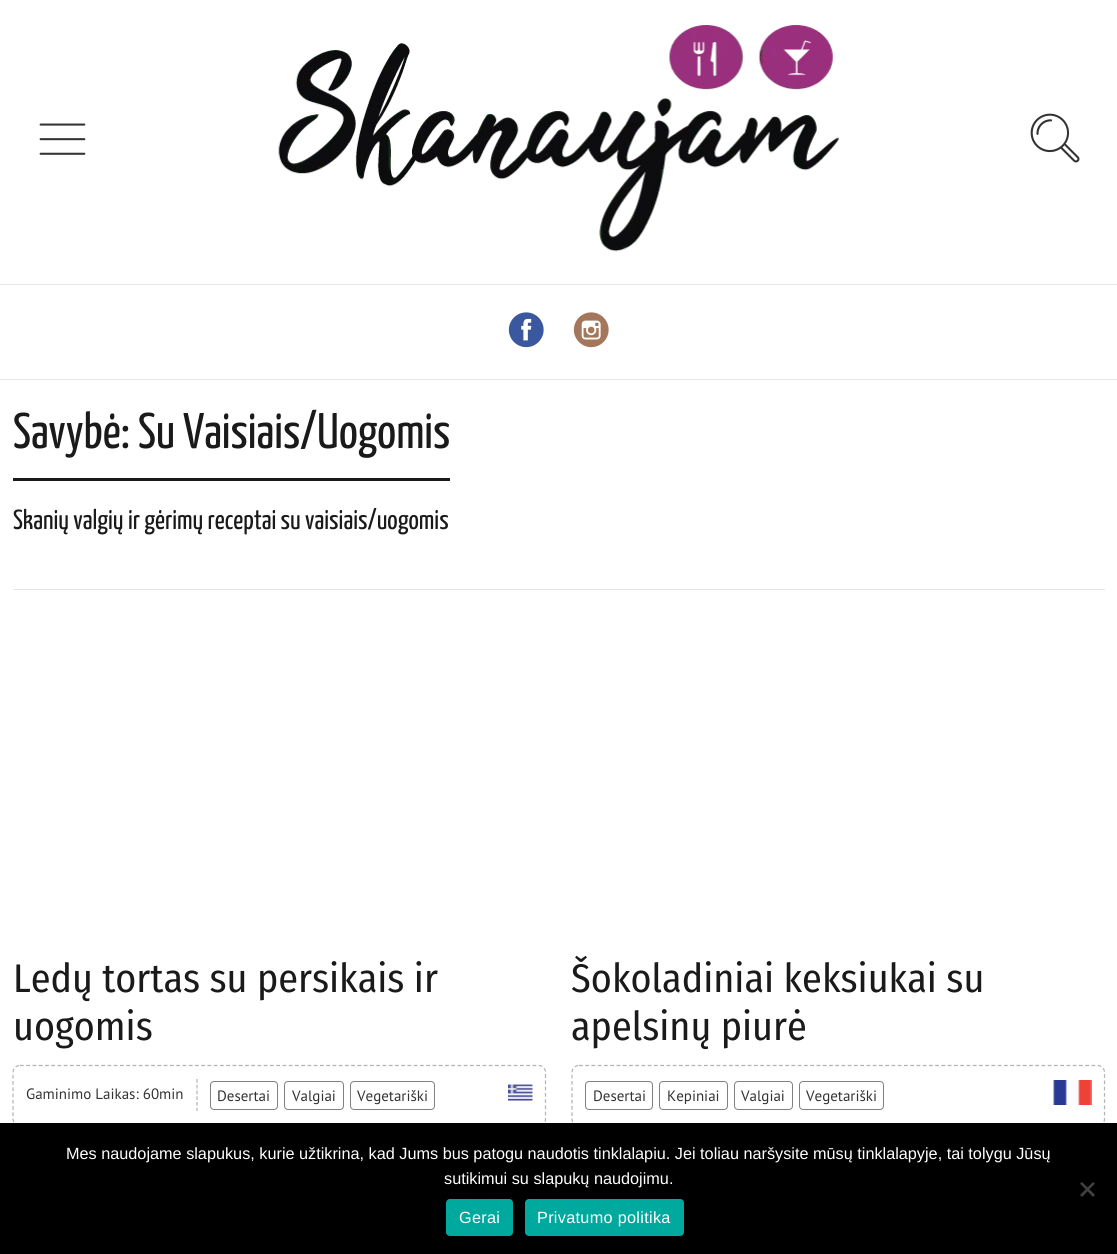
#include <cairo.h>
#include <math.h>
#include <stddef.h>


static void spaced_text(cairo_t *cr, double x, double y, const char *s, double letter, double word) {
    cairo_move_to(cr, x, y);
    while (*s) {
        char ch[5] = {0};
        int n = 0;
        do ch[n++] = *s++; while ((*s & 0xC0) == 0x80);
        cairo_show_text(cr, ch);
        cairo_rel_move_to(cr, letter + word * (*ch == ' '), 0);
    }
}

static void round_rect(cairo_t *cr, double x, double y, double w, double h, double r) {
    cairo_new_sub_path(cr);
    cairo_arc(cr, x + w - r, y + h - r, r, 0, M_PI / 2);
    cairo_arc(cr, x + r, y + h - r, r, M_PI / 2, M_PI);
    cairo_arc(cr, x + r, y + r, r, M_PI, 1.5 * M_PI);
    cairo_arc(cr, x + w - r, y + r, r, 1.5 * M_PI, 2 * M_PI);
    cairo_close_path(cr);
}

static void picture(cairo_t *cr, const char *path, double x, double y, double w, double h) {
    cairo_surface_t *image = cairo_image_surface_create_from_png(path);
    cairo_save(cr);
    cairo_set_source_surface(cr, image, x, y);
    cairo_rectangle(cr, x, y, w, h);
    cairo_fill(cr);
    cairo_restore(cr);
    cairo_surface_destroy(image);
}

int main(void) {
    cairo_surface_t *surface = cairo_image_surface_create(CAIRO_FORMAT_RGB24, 1117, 1254);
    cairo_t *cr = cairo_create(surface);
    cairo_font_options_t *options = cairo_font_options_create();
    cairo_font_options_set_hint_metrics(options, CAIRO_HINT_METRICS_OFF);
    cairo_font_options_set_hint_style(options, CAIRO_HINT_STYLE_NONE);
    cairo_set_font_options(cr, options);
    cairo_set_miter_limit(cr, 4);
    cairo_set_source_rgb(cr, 1, 1, 1);
    cairo_paint(cr);
    picture(cr, "img1.png", 39, 123, 47, 32);
    picture(cr, "img2.png", 278, 25, 561, 227);
    picture(cr, "img3.png", 1030, 113, 50, 50);
    cairo_set_source_rgb(cr, 0.902, 0.902, 0.902);
    cairo_rectangle(cr, 0, 284, 1117, 1);
    cairo_fill(cr);
    cairo_rectangle(cr, 0, 379, 1117, 1);
    cairo_fill(cr);
    picture(cr, "img4.png", 508, 312, 36, 36);
    picture(cr, "img5.png", 573, 312, 36, 36);
    cairo_rectangle(cr, 13, 589, 1092, 1);
    cairo_fill(cr);
    cairo_set_source_rgb(cr, 0.102, 0.102, 0.102);
    cairo_rectangle(cr, 13, 478, 437, 3);
    cairo_fill(cr);
    cairo_select_font_face(cr, "Yanone Kaffeesatz ExtraLight", CAIRO_FONT_SLANT_NORMAL, CAIRO_FONT_WEIGHT_NORMAL);
    cairo_set_font_size(cr, 50);
    cairo_move_to(cr, 13, 448);
    cairo_show_text(cr, "Savybė: Su Vaisiais/Uogomis");
    cairo_set_font_size(cr, 27.5);
    cairo_move_to(cr, 13, 529);
    cairo_show_text(cr, "Skanių valgių ir gėrimų receptai su vaisiais/uogomis");
    cairo_select_font_face(cr, "Fira Sans Condensed", CAIRO_FONT_SLANT_NORMAL, CAIRO_FONT_WEIGHT_NORMAL);
    cairo_set_font_size(cr, 40);
    cairo_move_to(cr, 13, 992);
    cairo_show_text(cr, "Ledų tortas su persikais ir");
    cairo_move_to(cr, 13, 1040);
    cairo_show_text(cr, "uogomis");
    cairo_new_path(cr);
    cairo_move_to(cr, 20, 1065.5);
    cairo_line_to(cr, 539, 1065.5);
    cairo_curve_to(cr, 542.5, 1065.5, 545.5, 1068.5, 545.5, 1072.5);
    cairo_line_to(cr, 545.5, 1119);
    cairo_curve_to(cr, 545.5, 1122.5, 542.5, 1125.5, 539, 1125.5);
    cairo_line_to(cr, 20, 1125.5);
    cairo_curve_to(cr, 16, 1125.5, 13, 1122.5, 13, 1119);
    cairo_line_to(cr, 13, 1072.5);
    cairo_curve_to(cr, 13, 1068.5, 16, 1065.5, 20, 1065.5);
    cairo_close_path(cr);
    cairo_set_source_rgb(cr, 0.702, 0.702, 0.702);
    cairo_set_line_width(cr, 1.2);
    cairo_set_dash(cr, (double[]){3.75, 2.5}, 2, 0);
    cairo_stroke(cr);
    cairo_new_path(cr);
    cairo_move_to(cr, 197, 1079);
    cairo_line_to(cr, 197, 1111);
    cairo_set_dash(cr, (double[]){3.75, 2}, 2, 0);
    cairo_stroke(cr);
    cairo_select_font_face(cr, "PT Sans", CAIRO_FONT_SLANT_NORMAL, CAIRO_FONT_WEIGHT_NORMAL);
    cairo_set_font_size(cr, 15);
    cairo_set_source_rgb(cr, 0.2, 0.2, 0.2);
    cairo_move_to(cr, 26, 1099);
    cairo_show_text(cr, "Gaminimo Laikas: 60min");
    round_rect(cr, 210.5, 1081.5, 67, 28, 3.5);
    cairo_set_source_rgb(cr, 0.502, 0.502, 0.502);
    cairo_set_line_width(cr, 1);
    cairo_set_dash(cr, NULL, 0, 0);
    cairo_stroke(cr);
    cairo_set_source_rgb(cr, 0.2, 0.2, 0.2);
    cairo_move_to(cr, 217, 1101);
    cairo_show_text(cr, "Desertai");
    round_rect(cr, 284.5, 1081.5, 59, 28, 3.5);
    cairo_set_source_rgb(cr, 0.502, 0.502, 0.502);
    cairo_stroke(cr);
    cairo_set_source_rgb(cr, 0.2, 0.2, 0.2);
    cairo_move_to(cr, 292, 1101);
    cairo_show_text(cr, "Valgiai");
    round_rect(cr, 350.5, 1081.5, 84, 28, 3.5);
    cairo_set_source_rgb(cr, 0.502, 0.502, 0.502);
    cairo_stroke(cr);
    cairo_set_source_rgb(cr, 0.2, 0.2, 0.2);
    cairo_move_to(cr, 357, 1101);
    cairo_show_text(cr, "Vegetariški");
    picture(cr, "img6.png", 508, 1084, 25, 17);
    cairo_select_font_face(cr, "Fira Sans Condensed", CAIRO_FONT_SLANT_NORMAL, CAIRO_FONT_WEIGHT_NORMAL);
    cairo_set_font_size(cr, 40);
    cairo_set_source_rgb(cr, 0.102, 0.102, 0.102);
    cairo_move_to(cr, 571, 992);
    cairo_show_text(cr, "Šokoladiniai keksiukai su");
    cairo_move_to(cr, 571, 1040);
    cairo_show_text(cr, "apelsinų piurė");
    cairo_new_path(cr);
    cairo_move_to(cr, 579, 1065.5);
    cairo_line_to(cr, 1097.5, 1065.5);
    cairo_curve_to(cr, 1101.5, 1065.5, 1104.5, 1068.5, 1104.5, 1072.5);
    cairo_line_to(cr, 1104.5, 1119);
    cairo_curve_to(cr, 1104.5, 1122.5, 1101.5, 1125.5, 1097.5, 1125.5);
    cairo_line_to(cr, 579, 1125.5);
    cairo_curve_to(cr, 575, 1125.5, 572, 1122.5, 572, 1119);
    cairo_line_to(cr, 572, 1072.5);
    cairo_curve_to(cr, 572, 1068.5, 575, 1065.5, 579, 1065.5);
    cairo_close_path(cr);
    cairo_set_source_rgb(cr, 0.702, 0.702, 0.702);
    cairo_set_line_width(cr, 1.2);
    cairo_set_dash(cr, (double[]){3.75, 2.5}, 2, 0);
    cairo_stroke(cr);
    round_rect(cr, 585.5, 1081.5, 67, 28, 3.5);
    cairo_set_source_rgb(cr, 0.502, 0.502, 0.502);
    cairo_set_line_width(cr, 1);
    cairo_set_dash(cr, NULL, 0, 0);
    cairo_stroke(cr);
    cairo_select_font_face(cr, "PT Sans", CAIRO_FONT_SLANT_NORMAL, CAIRO_FONT_WEIGHT_NORMAL);
    cairo_set_font_size(cr, 15);
    cairo_set_source_rgb(cr, 0.2, 0.2, 0.2);
    cairo_move_to(cr, 593, 1101);
    cairo_show_text(cr, "Desertai");
    round_rect(cr, 659.5, 1081.5, 68, 28, 3.5);
    cairo_set_source_rgb(cr, 0.502, 0.502, 0.502);
    cairo_stroke(cr);
    cairo_set_source_rgb(cr, 0.2, 0.2, 0.2);
    cairo_move_to(cr, 667, 1101);
    cairo_show_text(cr, "Kepiniai");
    round_rect(cr, 734.5, 1081.5, 58, 28, 3.5);
    cairo_set_source_rgb(cr, 0.502, 0.502, 0.502);
    cairo_stroke(cr);
    cairo_set_source_rgb(cr, 0.2, 0.2, 0.2);
    cairo_move_to(cr, 741, 1101);
    cairo_show_text(cr, "Valgiai");
    round_rect(cr, 799.5, 1081.5, 84, 28, 3.5);
    cairo_set_source_rgb(cr, 0.502, 0.502, 0.502);
    cairo_stroke(cr);
    cairo_set_source_rgb(cr, 0.2, 0.2, 0.2);
    cairo_move_to(cr, 806, 1101);
    cairo_show_text(cr, "Vegetariški");
    picture(cr, "img7.png", 1053, 1080, 39, 25);
    cairo_set_source_rgb(cr, 0, 0, 0);
    cairo_rectangle(cr, 0, 1123, 1117, 131);
    cairo_fill(cr);
    cairo_select_font_face(cr, "Liberation Sans", CAIRO_FONT_SLANT_NORMAL, CAIRO_FONT_WEIGHT_NORMAL);
    cairo_set_font_size(cr, 16.25);
    cairo_set_source_rgb(cr, 1, 1, 1);
    cairo_move_to(cr, 66, 1159);
    cairo_show_text(cr, "Mes naudojame slapukus, kurie užtikrina, kad Jums bus patogu naudotis tinklalapiu. Jei toliau naršysite mūsų tinklalapyje, tai tolygu Jūsų");
    cairo_move_to(cr, 444, 1184);
    cairo_show_text(cr, "sutikimui su slapukų naudojimu.");
    cairo_set_source_rgb(cr, 0.251, 0.251, 0.251);
    cairo_new_path(cr);
    cairo_move_to(cr, 1093, 1182);
    cairo_line_to(cr, 1095, 1183.5);
    cairo_line_to(cr, 1082, 1197);
    cairo_line_to(cr, 1080, 1195);
    cairo_close_path(cr);
    cairo_fill(cr);
    cairo_new_path(cr);
    cairo_move_to(cr, 1080, 1183.5);
    cairo_line_to(cr, 1082, 1182);
    cairo_line_to(cr, 1095, 1195);
    cairo_line_to(cr, 1093, 1197);
    cairo_close_path(cr);
    cairo_fill(cr);
    cairo_set_source_rgb(cr, 0, 0.663, 0.616);
    round_rect(cr, 446, 1199, 67, 37, 4);
    cairo_fill(cr);
    cairo_set_source_rgb(cr, 1, 1, 1);
    spaced_text(cr, 459, 1223, "Gerai", 0.3, 0);
    cairo_set_source_rgb(cr, 0, 0.663, 0.616);
    round_rect(cr, 525, 1199, 159, 37, 4);
    cairo_fill(cr);
    cairo_set_source_rgb(cr, 1, 1, 1);
    spaced_text(cr, 537, 1223, "Privatumo politika", 0.3, 0);
    cairo_surface_write_to_png(surface, "page.png");
    cairo_font_options_destroy(options);
    cairo_destroy(cr);
    cairo_surface_destroy(surface);
    return 0;
}
